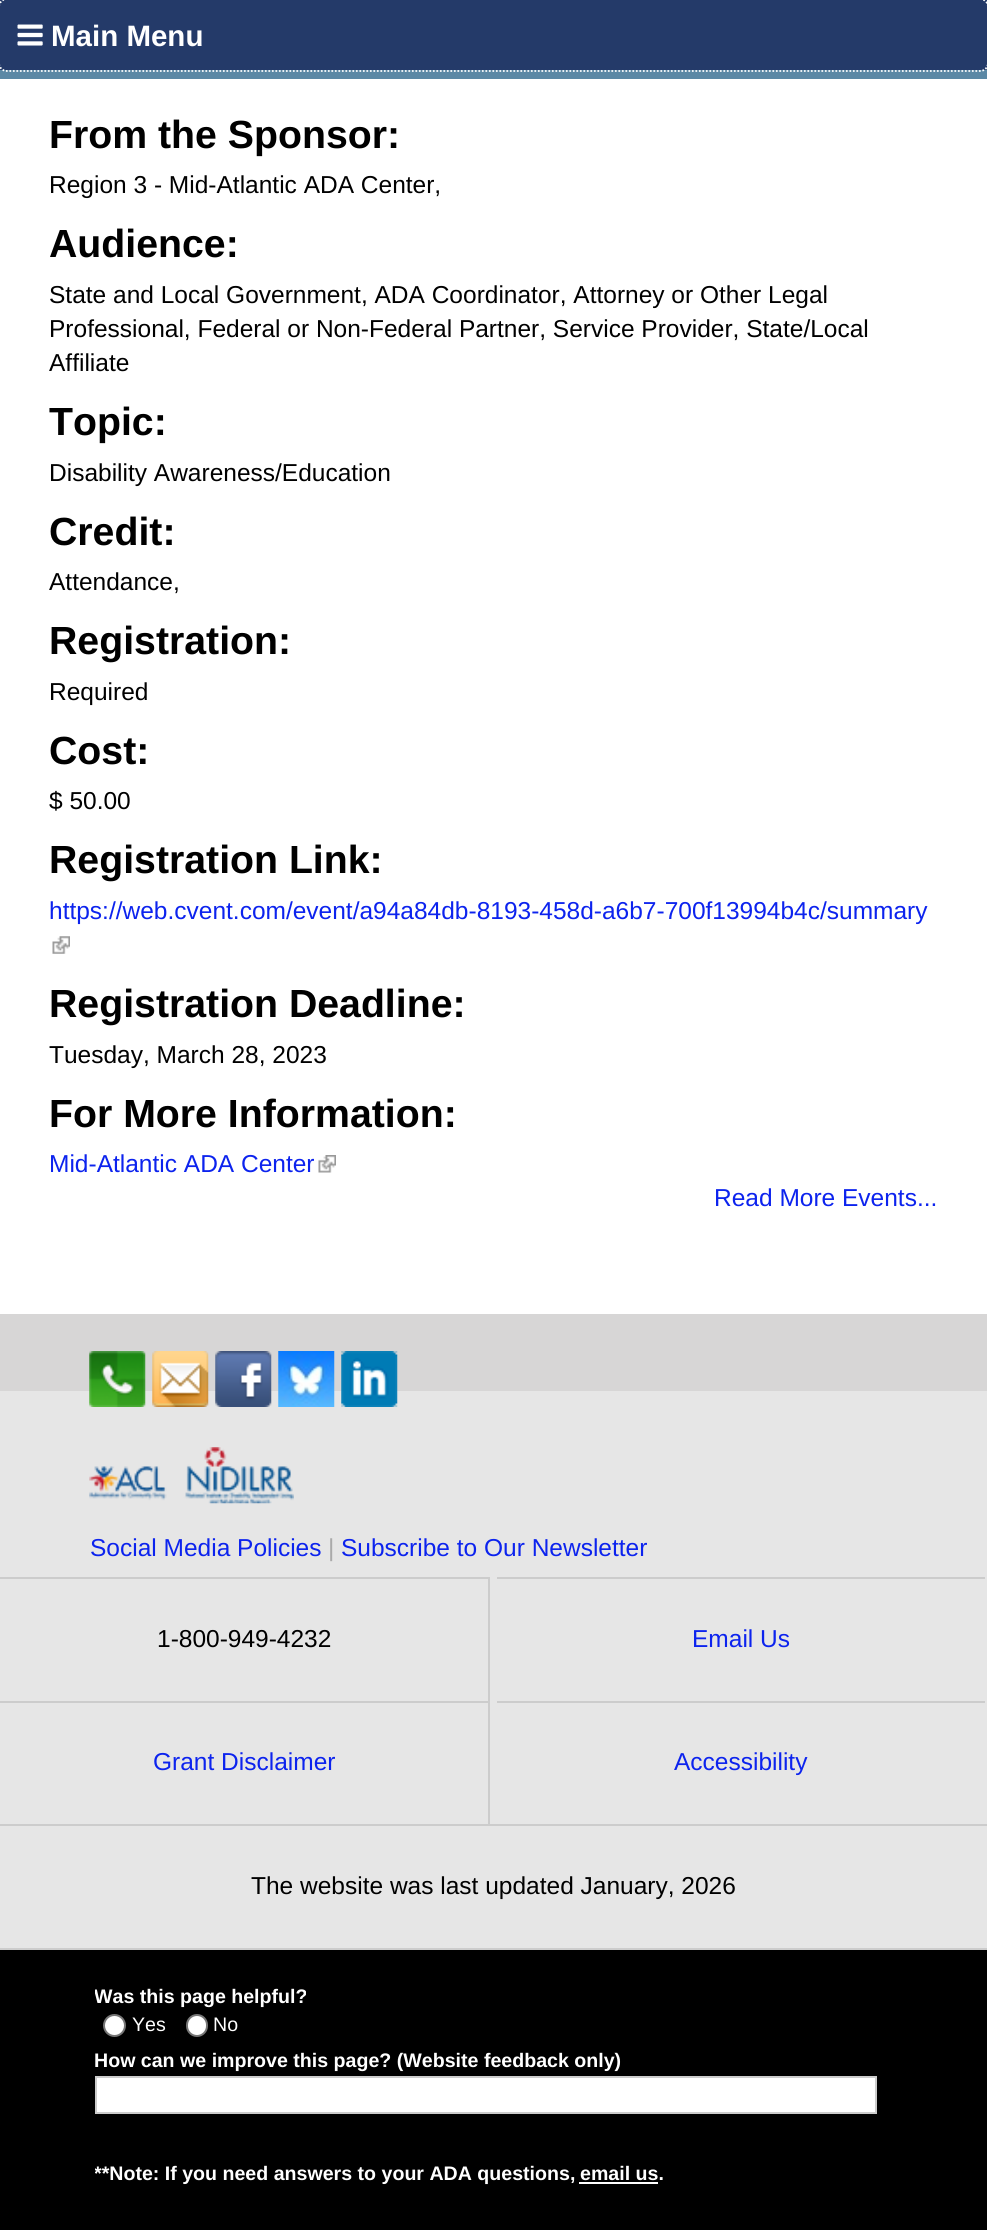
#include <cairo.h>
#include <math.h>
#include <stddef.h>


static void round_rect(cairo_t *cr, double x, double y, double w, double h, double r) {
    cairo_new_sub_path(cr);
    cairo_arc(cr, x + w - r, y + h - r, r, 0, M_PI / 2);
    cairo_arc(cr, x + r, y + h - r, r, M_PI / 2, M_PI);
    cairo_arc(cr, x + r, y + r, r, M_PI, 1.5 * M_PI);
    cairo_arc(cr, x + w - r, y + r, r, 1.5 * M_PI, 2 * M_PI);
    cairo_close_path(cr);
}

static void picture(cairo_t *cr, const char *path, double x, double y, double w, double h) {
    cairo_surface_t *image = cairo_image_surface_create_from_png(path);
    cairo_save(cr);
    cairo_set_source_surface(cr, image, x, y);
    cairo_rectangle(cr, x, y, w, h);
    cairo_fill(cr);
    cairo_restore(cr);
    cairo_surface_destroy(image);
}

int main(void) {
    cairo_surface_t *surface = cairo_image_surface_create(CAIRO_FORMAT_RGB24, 987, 2230);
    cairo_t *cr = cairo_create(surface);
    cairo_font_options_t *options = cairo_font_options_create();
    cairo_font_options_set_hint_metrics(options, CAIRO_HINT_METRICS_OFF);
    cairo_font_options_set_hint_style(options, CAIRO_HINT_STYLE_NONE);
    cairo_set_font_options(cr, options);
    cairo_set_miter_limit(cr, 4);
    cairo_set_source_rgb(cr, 1, 1, 1);
    cairo_paint(cr);
    cairo_set_source_rgb(cr, 0.357, 0.533, 0.647);
    cairo_rectangle(cr, 0, 70, 987, 9);
    cairo_fill(cr);
    cairo_set_source_rgb(cr, 0.141, 0.227, 0.412);
    cairo_rectangle(cr, 0, 0, 987, 70);
    cairo_fill(cr);
    picture(cr, "img1.png", 17, 24, 26, 22);
    cairo_new_path(cr);
    cairo_move_to(cr, 7, -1);
    cairo_line_to(cr, 980, -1);
    cairo_curve_to(cr, 984.5, -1, 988, 2.5, 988, 7);
    cairo_line_to(cr, 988, 63);
    cairo_curve_to(cr, 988, 67.5, 984.5, 71, 980, 71);
    cairo_line_to(cr, 7, 71);
    cairo_curve_to(cr, 2.5, 71, -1, 67.5, -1, 63);
    cairo_line_to(cr, -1, 7);
    cairo_curve_to(cr, -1, 2.5, 2.5, -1, 7, -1);
    cairo_close_path(cr);
    cairo_set_source_rgb(cr, 1, 1, 1);
    cairo_set_line_width(cr, 1.8);
    cairo_set_dash(cr, (double[]){1.75, 1.75}, 2, 0);
    cairo_stroke(cr);
    cairo_select_font_face(cr, "Liberation Sans", CAIRO_FONT_SLANT_NORMAL, CAIRO_FONT_WEIGHT_BOLD);
    cairo_set_font_size(cr, 29.5);
    cairo_move_to(cr, 51, 46);
    cairo_show_text(cr, "Main Menu");
    cairo_set_font_size(cr, 39.25);
    cairo_set_source_rgb(cr, 0, 0, 0);
    cairo_move_to(cr, 49, 148);
    cairo_show_text(cr, "From the Sponsor:");
    cairo_select_font_face(cr, "Liberation Sans", CAIRO_FONT_SLANT_NORMAL, CAIRO_FONT_WEIGHT_NORMAL);
    cairo_set_font_size(cr, 24.5);
    cairo_move_to(cr, 49, 193);
    cairo_show_text(cr, "Region 3 - Mid-Atlantic ADA Center,");
    cairo_select_font_face(cr, "Liberation Sans", CAIRO_FONT_SLANT_NORMAL, CAIRO_FONT_WEIGHT_BOLD);
    cairo_set_font_size(cr, 39.25);
    cairo_move_to(cr, 49, 257);
    cairo_show_text(cr, "Audience:");
    cairo_select_font_face(cr, "Liberation Sans", CAIRO_FONT_SLANT_NORMAL, CAIRO_FONT_WEIGHT_NORMAL);
    cairo_set_font_size(cr, 24.5);
    cairo_move_to(cr, 49, 303);
    cairo_show_text(cr, "State and Local Government, ADA Coordinator, Attorney or Other Legal");
    cairo_move_to(cr, 49, 337);
    cairo_show_text(cr, "Professional, Federal or Non-Federal Partner, Service Provider, State/Local");
    cairo_move_to(cr, 49, 371);
    cairo_show_text(cr, "Affiliate");
    cairo_select_font_face(cr, "Liberation Sans", CAIRO_FONT_SLANT_NORMAL, CAIRO_FONT_WEIGHT_BOLD);
    cairo_set_font_size(cr, 39.25);
    cairo_move_to(cr, 49, 435);
    cairo_show_text(cr, "Topic:");
    cairo_select_font_face(cr, "Liberation Sans", CAIRO_FONT_SLANT_NORMAL, CAIRO_FONT_WEIGHT_NORMAL);
    cairo_set_font_size(cr, 24.5);
    cairo_move_to(cr, 49, 481);
    cairo_show_text(cr, "Disability Awareness/Education");
    cairo_select_font_face(cr, "Liberation Sans", CAIRO_FONT_SLANT_NORMAL, CAIRO_FONT_WEIGHT_BOLD);
    cairo_set_font_size(cr, 39.25);
    cairo_move_to(cr, 49, 545);
    cairo_show_text(cr, "Credit:");
    cairo_select_font_face(cr, "Liberation Sans", CAIRO_FONT_SLANT_NORMAL, CAIRO_FONT_WEIGHT_NORMAL);
    cairo_set_font_size(cr, 24.5);
    cairo_move_to(cr, 49, 590);
    cairo_show_text(cr, "Attendance,");
    cairo_select_font_face(cr, "Liberation Sans", CAIRO_FONT_SLANT_NORMAL, CAIRO_FONT_WEIGHT_BOLD);
    cairo_set_font_size(cr, 39.25);
    cairo_move_to(cr, 49, 654);
    cairo_show_text(cr, "Registration:");
    cairo_select_font_face(cr, "Liberation Sans", CAIRO_FONT_SLANT_NORMAL, CAIRO_FONT_WEIGHT_NORMAL);
    cairo_set_font_size(cr, 24.5);
    cairo_move_to(cr, 49, 700);
    cairo_show_text(cr, "Required");
    cairo_select_font_face(cr, "Liberation Sans", CAIRO_FONT_SLANT_NORMAL, CAIRO_FONT_WEIGHT_BOLD);
    cairo_set_font_size(cr, 39.25);
    cairo_move_to(cr, 49, 764);
    cairo_show_text(cr, "Cost:");
    cairo_select_font_face(cr, "Liberation Sans", CAIRO_FONT_SLANT_NORMAL, CAIRO_FONT_WEIGHT_NORMAL);
    cairo_set_font_size(cr, 24.5);
    cairo_move_to(cr, 49, 809);
    cairo_show_text(cr, "$ 50.00");
    cairo_select_font_face(cr, "Liberation Sans", CAIRO_FONT_SLANT_NORMAL, CAIRO_FONT_WEIGHT_BOLD);
    cairo_set_font_size(cr, 39.25);
    cairo_move_to(cr, 49, 873);
    cairo_show_text(cr, "Registration Link:");
    cairo_select_font_face(cr, "Liberation Sans", CAIRO_FONT_SLANT_NORMAL, CAIRO_FONT_WEIGHT_NORMAL);
    cairo_set_font_size(cr, 24.5);
    cairo_set_source_rgb(cr, 0.047, 0.137, 0.933);
    cairo_move_to(cr, 49, 919);
    cairo_show_text(cr, "https://web.cvent.com/event/a94a84db-8193-458d-a6b7-700f13994b4c/summary");
    picture(cr, "img2.png", 52, 936, 18, 18);
    cairo_select_font_face(cr, "Liberation Sans", CAIRO_FONT_SLANT_NORMAL, CAIRO_FONT_WEIGHT_BOLD);
    cairo_set_font_size(cr, 39.25);
    cairo_set_source_rgb(cr, 0, 0, 0);
    cairo_move_to(cr, 49, 1017);
    cairo_show_text(cr, "Registration Deadline:");
    cairo_select_font_face(cr, "Liberation Sans", CAIRO_FONT_SLANT_NORMAL, CAIRO_FONT_WEIGHT_NORMAL);
    cairo_set_font_size(cr, 24.5);
    cairo_move_to(cr, 49, 1063);
    cairo_show_text(cr, "Tuesday, March 28, 2023");
    cairo_select_font_face(cr, "Liberation Sans", CAIRO_FONT_SLANT_NORMAL, CAIRO_FONT_WEIGHT_BOLD);
    cairo_set_font_size(cr, 39.25);
    cairo_move_to(cr, 49, 1127);
    cairo_show_text(cr, "For More Information:");
    cairo_select_font_face(cr, "Liberation Sans", CAIRO_FONT_SLANT_NORMAL, CAIRO_FONT_WEIGHT_NORMAL);
    cairo_set_font_size(cr, 24.5);
    cairo_set_source_rgb(cr, 0.047, 0.137, 0.933);
    cairo_move_to(cr, 49, 1172);
    cairo_show_text(cr, "Mid-Atlantic ADA Center");
    picture(cr, "img3.png", 318, 1155, 18, 18);
    cairo_move_to(cr, 714, 1206);
    cairo_show_text(cr, "Read More Events...");
    cairo_set_source_rgb(cr, 0.843, 0.839, 0.839);
    cairo_rectangle(cr, 0, 1314, 987, 77);
    cairo_fill(cr);
    cairo_set_source_rgb(cr, 0.902, 0.902, 0.902);
    cairo_rectangle(cr, 0, 1391, 987, 557);
    cairo_fill(cr);
    picture(cr, "img4.png", 89, 1351, 57, 56);
    picture(cr, "img5.png", 152, 1351, 57, 56);
    picture(cr, "img6.png", 215, 1351, 57, 56);
    picture(cr, "img7.png", 278, 1351, 57, 56);
    picture(cr, "img8.png", 341, 1351, 57, 56);
    picture(cr, "img9.png", 89, 1447, 205, 57);
    cairo_set_source_rgb(cr, 0.047, 0.137, 0.933);
    cairo_move_to(cr, 90, 1556);
    cairo_show_text(cr, "Social Media Policies");
    cairo_set_source_rgb(cr, 0.667, 0.667, 0.667);
    cairo_move_to(cr, 328, 1556);
    cairo_show_text(cr, "|");
    cairo_set_source_rgb(cr, 0.047, 0.137, 0.933);
    cairo_move_to(cr, 341, 1556);
    cairo_show_text(cr, "Subscribe to Our Newsletter");
    cairo_set_source_rgb(cr, 0.8, 0.8, 0.8);
    cairo_rectangle(cr, 0, 1948, 987, 2);
    cairo_fill(cr);
    cairo_rectangle(cr, 0, 1577, 490, 2);
    cairo_fill(cr);
    cairo_rectangle(cr, 488, 1577, 2, 124);
    cairo_fill(cr);
    cairo_set_source_rgb(cr, 0, 0, 0);
    cairo_move_to(cr, 157, 1647);
    cairo_show_text(cr, "1-800-949-4232");
    cairo_set_source_rgb(cr, 0.8, 0.8, 0.8);
    cairo_rectangle(cr, 497, 1577, 488, 2);
    cairo_fill(cr);
    cairo_set_source_rgb(cr, 0.047, 0.137, 0.933);
    cairo_move_to(cr, 692, 1647);
    cairo_show_text(cr, "Email Us");
    cairo_set_source_rgb(cr, 0.8, 0.8, 0.8);
    cairo_rectangle(cr, 0, 1701, 490, 2);
    cairo_fill(cr);
    cairo_rectangle(cr, 488, 1701, 2, 123);
    cairo_fill(cr);
    cairo_set_source_rgb(cr, 0.047, 0.137, 0.933);
    cairo_move_to(cr, 153, 1770);
    cairo_show_text(cr, "Grant Disclaimer");
    cairo_set_source_rgb(cr, 0.8, 0.8, 0.8);
    cairo_rectangle(cr, 497, 1701, 488, 2);
    cairo_fill(cr);
    cairo_set_source_rgb(cr, 0.047, 0.137, 0.933);
    cairo_move_to(cr, 674, 1770);
    cairo_show_text(cr, "Accessibility");
    cairo_set_source_rgb(cr, 0.8, 0.8, 0.8);
    cairo_rectangle(cr, 0, 1824, 987, 2);
    cairo_fill(cr);
    cairo_set_source_rgb(cr, 0, 0, 0);
    cairo_move_to(cr, 251, 1894);
    cairo_show_text(cr, "The website was last updated January, 2026");
    cairo_rectangle(cr, 0, 1950, 987, 280);
    cairo_fill(cr);
    cairo_save(cr);
    cairo_rectangle(cr, 95, 1985, 798, 229);
    cairo_clip(cr);
    cairo_select_font_face(cr, "Liberation Sans", CAIRO_FONT_SLANT_NORMAL, CAIRO_FONT_WEIGHT_BOLD);
    cairo_set_font_size(cr, 19.6);
    cairo_set_source_rgb(cr, 1, 1, 1);
    cairo_move_to(cr, 94, 2003);
    cairo_show_text(cr, "Was this page helpful?");
    cairo_restore(cr);
    cairo_set_source_rgb(cr, 1, 1, 1);
    cairo_new_path(cr);
    cairo_arc(cr, 114.5, 2025.5, 10.5, 0, 2 * M_PI);
    cairo_fill_preserve(cr);
    cairo_set_source_rgb(cr, 0.463, 0.463, 0.463);
    cairo_set_line_width(cr, 2);
    cairo_set_dash(cr, NULL, 0, 0);
    cairo_stroke(cr);
    cairo_set_font_size(cr, 19.6);
    cairo_set_source_rgb(cr, 1, 1, 1);
    cairo_move_to(cr, 132, 2031);
    cairo_show_text(cr, "Yes");
    round_rect(cr, 187, 2015, 20, 21, 10);
    cairo_fill_preserve(cr);
    cairo_set_source_rgb(cr, 0.463, 0.463, 0.463);
    cairo_stroke(cr);
    cairo_set_source_rgb(cr, 1, 1, 1);
    cairo_move_to(cr, 213, 2031);
    cairo_show_text(cr, "No");
    cairo_select_font_face(cr, "Liberation Sans", CAIRO_FONT_SLANT_NORMAL, CAIRO_FONT_WEIGHT_BOLD);
    cairo_move_to(cr, 94, 2067);
    cairo_show_text(cr, "How can we improve this page? (Website feedback only)");
    cairo_rectangle(cr, 96, 2077, 780, 36);
    cairo_fill_preserve(cr);
    cairo_set_source_rgb(cr, 0.8, 0.8, 0.8);
    cairo_stroke(cr);
    cairo_save(cr);
    cairo_rectangle(cr, 95, 1985, 798, 229);
    cairo_clip(cr);
    cairo_set_source_rgb(cr, 1, 1, 1);
    cairo_move_to(cr, 94, 2180);
    cairo_show_text(cr, "**Note: If you need answers to your ADA questions,");
    cairo_restore(cr);
    cairo_set_source_rgb(cr, 1, 1, 1);
    cairo_move_to(cr, 580, 2180);
    cairo_show_text(cr, "email us.");
    cairo_rectangle(cr, 579, 2182, 79, 2);
    cairo_fill(cr);
    cairo_surface_write_to_png(surface, "page.png");
    cairo_font_options_destroy(options);
    cairo_destroy(cr);
    cairo_surface_destroy(surface);
    return 0;
}
